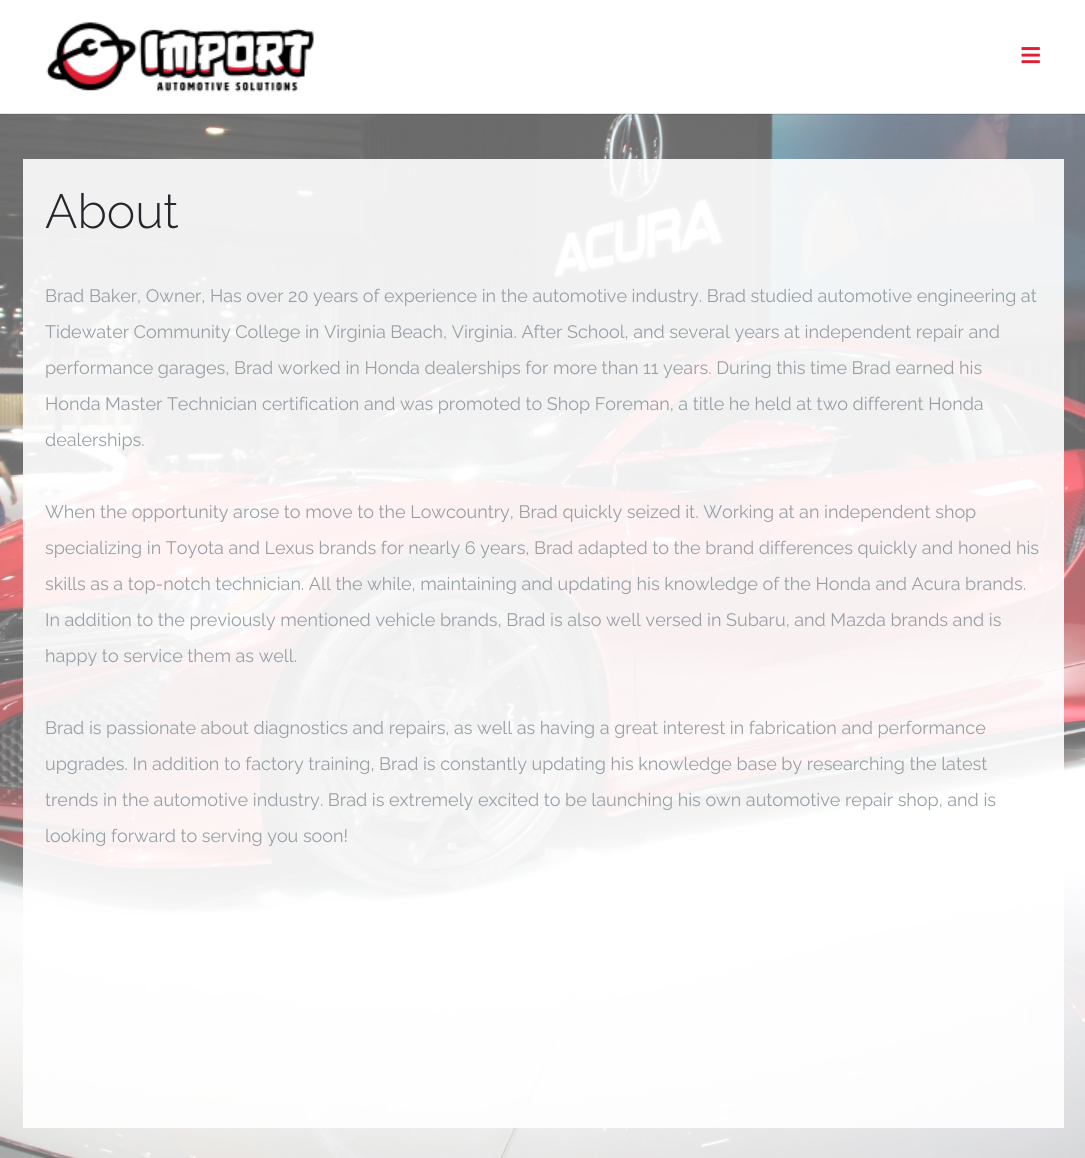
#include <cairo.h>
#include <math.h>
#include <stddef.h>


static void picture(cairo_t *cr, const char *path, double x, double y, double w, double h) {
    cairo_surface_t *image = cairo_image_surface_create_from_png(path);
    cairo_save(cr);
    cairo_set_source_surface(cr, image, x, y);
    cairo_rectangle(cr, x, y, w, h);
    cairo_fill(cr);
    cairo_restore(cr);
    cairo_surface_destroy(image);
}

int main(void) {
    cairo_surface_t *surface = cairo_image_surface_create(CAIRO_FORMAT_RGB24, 1085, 1158);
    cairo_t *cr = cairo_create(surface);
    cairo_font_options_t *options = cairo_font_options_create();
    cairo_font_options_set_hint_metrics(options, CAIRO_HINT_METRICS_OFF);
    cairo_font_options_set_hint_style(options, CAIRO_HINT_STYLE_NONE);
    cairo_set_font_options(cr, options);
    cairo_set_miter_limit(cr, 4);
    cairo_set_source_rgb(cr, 1, 1, 1);
    cairo_paint(cr);
    picture(cr, "img1.png", 0, 114, 1085, 1044);
    cairo_set_source_rgba(cr, 0, 0, 0, 0.1);
    cairo_rectangle(cr, 0, 113, 1085, 2);
    cairo_fill(cr);
    picture(cr, "img2.png", 46, 22, 268, 70);
    picture(cr, "img3.png", 1021, 47, 19, 17);
    cairo_set_source_rgba(cr, 1, 1, 1, 0.9);
    cairo_rectangle(cr, 23, 159, 1041, 969);
    cairo_fill(cr);
    cairo_select_font_face(cr, "Raleway Light", CAIRO_FONT_SLANT_NORMAL, CAIRO_FONT_WEIGHT_NORMAL);
    cairo_set_font_size(cr, 48);
    cairo_set_source_rgb(cr, 0.145, 0.149, 0.169);
    cairo_move_to(cr, 45, 228);
    cairo_show_text(cr, "About");
    cairo_select_font_face(cr, "Raleway", CAIRO_FONT_SLANT_NORMAL, CAIRO_FONT_WEIGHT_NORMAL);
    cairo_set_font_size(cr, 18);
    cairo_set_source_rgb(cr, 0.588, 0.627, 0.651);
    cairo_move_to(cr, 45, 302);
    cairo_show_text(cr, "Brad Baker, Owner, Has over 20 years of experience in the automotive industry. Brad studied automotive engineering at");
    cairo_move_to(cr, 45, 338);
    cairo_show_text(cr, "Tidewater Community College in Virginia Beach, Virginia. After School, and several years at independent repair and");
    cairo_move_to(cr, 45, 374);
    cairo_show_text(cr, "performance garages, Brad worked in Honda dealerships for more than 11 years. During this time Brad earned his");
    cairo_move_to(cr, 45, 410);
    cairo_show_text(cr, "Honda Master Technician certification and was promoted to Shop Foreman, a title he held at two different Honda");
    cairo_move_to(cr, 45, 446);
    cairo_show_text(cr, "dealerships.");
    cairo_move_to(cr, 45, 518);
    cairo_show_text(cr, "When the opportunity arose to move to the Lowcountry, Brad quickly seized it. Working at an independent shop");
    cairo_move_to(cr, 45, 554);
    cairo_show_text(cr, "specializing in Toyota and Lexus brands for nearly 6 years, Brad adapted to the brand differences quickly and honed his");
    cairo_move_to(cr, 45, 590);
    cairo_show_text(cr, "skills as a top-notch technician. All the while, maintaining and updating his knowledge of the Honda and Acura brands.");
    cairo_move_to(cr, 45, 626);
    cairo_show_text(cr, "In addition to the previously mentioned vehicle brands, Brad is also well versed in Subaru, and Mazda brands and is");
    cairo_move_to(cr, 45, 662);
    cairo_show_text(cr, "happy to service them as well.");
    cairo_move_to(cr, 45, 734);
    cairo_show_text(cr, "Brad is passionate about diagnostics and repairs, as well as having a great interest in fabrication and performance");
    cairo_move_to(cr, 45, 770);
    cairo_show_text(cr, "upgrades. In addition to factory training, Brad is constantly updating his knowledge base by researching the latest");
    cairo_move_to(cr, 45, 806);
    cairo_show_text(cr, "trends in the automotive industry. Brad is extremely excited to be launching his own automotive repair shop, and is");
    cairo_move_to(cr, 45, 842);
    cairo_show_text(cr, "looking forward to serving you soon!");
    cairo_surface_write_to_png(surface, "page.png");
    cairo_font_options_destroy(options);
    cairo_destroy(cr);
    cairo_surface_destroy(surface);
    return 0;
}
